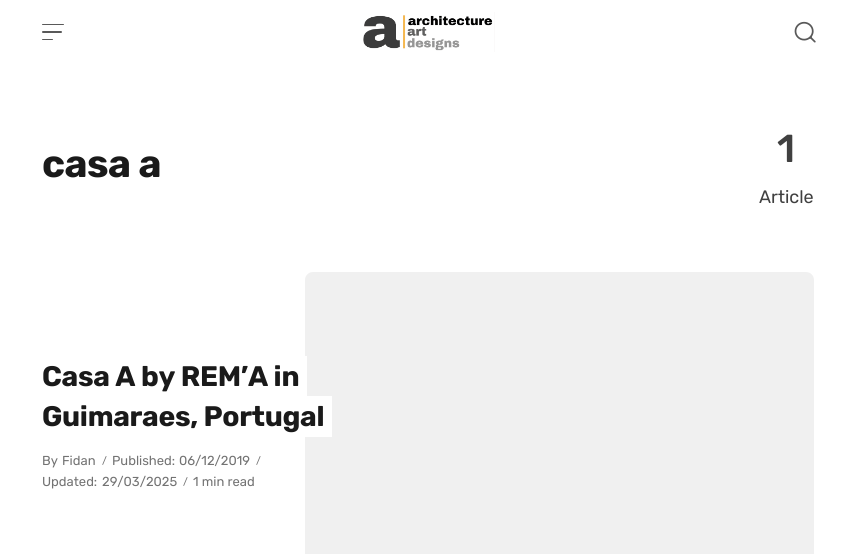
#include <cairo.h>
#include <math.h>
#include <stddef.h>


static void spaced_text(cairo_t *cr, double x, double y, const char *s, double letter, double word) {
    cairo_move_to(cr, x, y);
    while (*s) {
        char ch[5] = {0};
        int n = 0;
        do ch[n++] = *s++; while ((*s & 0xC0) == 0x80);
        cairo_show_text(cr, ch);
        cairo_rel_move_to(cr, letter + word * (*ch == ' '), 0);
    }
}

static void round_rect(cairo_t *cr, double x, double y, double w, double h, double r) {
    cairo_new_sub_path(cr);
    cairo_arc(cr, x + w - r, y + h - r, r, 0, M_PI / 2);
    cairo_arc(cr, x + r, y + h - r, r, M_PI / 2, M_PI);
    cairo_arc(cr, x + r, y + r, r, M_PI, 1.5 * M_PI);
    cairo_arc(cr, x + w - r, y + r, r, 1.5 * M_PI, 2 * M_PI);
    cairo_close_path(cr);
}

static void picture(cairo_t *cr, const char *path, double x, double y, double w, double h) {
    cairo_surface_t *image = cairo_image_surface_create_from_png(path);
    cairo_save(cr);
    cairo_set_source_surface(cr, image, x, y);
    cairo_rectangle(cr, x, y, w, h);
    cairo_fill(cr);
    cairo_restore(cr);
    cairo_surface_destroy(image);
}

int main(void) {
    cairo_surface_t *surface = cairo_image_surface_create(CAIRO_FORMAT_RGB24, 856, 554);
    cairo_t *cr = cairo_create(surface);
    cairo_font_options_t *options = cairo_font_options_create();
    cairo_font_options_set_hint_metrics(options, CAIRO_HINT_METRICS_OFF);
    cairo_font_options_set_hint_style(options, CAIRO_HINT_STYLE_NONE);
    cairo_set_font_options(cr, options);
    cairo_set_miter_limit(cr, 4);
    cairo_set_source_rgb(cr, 1, 1, 1);
    cairo_paint(cr);
    cairo_set_source_rgb(cr, 0.349, 0.349, 0.349);
    round_rect(cr, 42, 24, 22, 1, 0.5);
    cairo_fill(cr);
    round_rect(cr, 42, 31, 20, 2, 1);
    cairo_fill(cr);
    round_rect(cr, 42, 39, 11, 1, 0.5);
    cairo_fill(cr);
    picture(cr, "img1.png", 363, 12, 132, 40);
    picture(cr, "img2.png", 794, 21, 22, 22);
    cairo_select_font_face(cr, "Rubik", CAIRO_FONT_SLANT_NORMAL, CAIRO_FONT_WEIGHT_BOLD);
    cairo_set_font_size(cr, 39);
    cairo_set_source_rgb(cr, 0.102, 0.102, 0.102);
    spaced_text(cr, 42, 177, "casa a", -0.5, 0);
    cairo_select_font_face(cr, "Rubik Medium", CAIRO_FONT_SLANT_NORMAL, CAIRO_FONT_WEIGHT_NORMAL);
    cairo_set_source_rgb(cr, 0.251, 0.251, 0.251);
    cairo_move_to(cr, 777, 162);
    cairo_show_text(cr, "1");
    cairo_select_font_face(cr, "Rubik", CAIRO_FONT_SLANT_NORMAL, CAIRO_FONT_WEIGHT_NORMAL);
    cairo_set_font_size(cr, 18);
    cairo_move_to(cr, 759, 203);
    cairo_show_text(cr, "Article");
    cairo_set_source_rgb(cr, 0.941, 0.941, 0.941);
    round_rect(cr, 305, 272, 509, 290, 8);
    cairo_fill(cr);
    cairo_set_source_rgb(cr, 1, 1, 1);
    cairo_new_path(cr);
    cairo_move_to(cr, 50, 356);
    cairo_line_to(cr, 50, 360);
    cairo_line_to(cr, 299, 360);
    cairo_line_to(cr, 299, 389);
    cairo_line_to(cr, 307, 389);
    cairo_line_to(cr, 307, 356);
    cairo_close_path(cr);
    cairo_fill(cr);
    cairo_new_path(cr);
    cairo_move_to(cr, 50, 393);
    cairo_line_to(cr, 50, 397);
    cairo_line_to(cr, 307, 397);
    cairo_line_to(cr, 307, 364);
    cairo_line_to(cr, 299, 364);
    cairo_line_to(cr, 299, 393);
    cairo_close_path(cr);
    cairo_fill(cr);
    cairo_select_font_face(cr, "Rubik", CAIRO_FONT_SLANT_NORMAL, CAIRO_FONT_WEIGHT_BOLD);
    cairo_set_font_size(cr, 28.25);
    cairo_set_source_rgb(cr, 0.102, 0.102, 0.102);
    spaced_text(cr, 42, 386, "Casa A by REM’A in", -0.3, 0);
    cairo_set_source_rgb(cr, 1, 1, 1);
    cairo_new_path(cr);
    cairo_move_to(cr, 50, 396);
    cairo_line_to(cr, 50, 400);
    cairo_line_to(cr, 324, 400);
    cairo_line_to(cr, 324, 429);
    cairo_line_to(cr, 332, 429);
    cairo_line_to(cr, 332, 396);
    cairo_close_path(cr);
    cairo_fill(cr);
    cairo_new_path(cr);
    cairo_move_to(cr, 50, 433);
    cairo_line_to(cr, 50, 437);
    cairo_line_to(cr, 332, 437);
    cairo_line_to(cr, 332, 404);
    cairo_line_to(cr, 324, 404);
    cairo_line_to(cr, 324, 433);
    cairo_close_path(cr);
    cairo_fill(cr);
    cairo_rectangle(cr, 305, 400, 19, 33);
    cairo_fill(cr);
    cairo_set_source_rgb(cr, 0.102, 0.102, 0.102);
    spaced_text(cr, 42, 426, "Guimaraes, Portugal", -0.3, 0);
    cairo_select_font_face(cr, "Rubik", CAIRO_FONT_SLANT_NORMAL, CAIRO_FONT_WEIGHT_NORMAL);
    cairo_set_font_size(cr, 13);
    cairo_set_source_rgb(cr, 0.451, 0.451, 0.451);
    cairo_move_to(cr, 42, 465);
    cairo_show_text(cr, "By");
    cairo_move_to(cr, 62, 465);
    cairo_show_text(cr, "Fidan");
    cairo_set_font_size(cr, 10);
    cairo_move_to(cr, 102, 464);
    cairo_show_text(cr, "/");
    cairo_set_font_size(cr, 13);
    cairo_move_to(cr, 112, 465);
    cairo_show_text(cr, "Published:");
    cairo_move_to(cr, 179, 465);
    cairo_show_text(cr, "06/12/2019");
    cairo_set_font_size(cr, 10);
    cairo_move_to(cr, 256, 464);
    cairo_show_text(cr, "/");
    cairo_set_font_size(cr, 13);
    cairo_move_to(cr, 42, 486);
    cairo_show_text(cr, "Updated:");
    cairo_move_to(cr, 102, 486);
    cairo_show_text(cr, "29/03/2025");
    cairo_set_font_size(cr, 10);
    cairo_move_to(cr, 183, 485);
    cairo_show_text(cr, "/");
    cairo_set_font_size(cr, 13);
    cairo_move_to(cr, 193, 486);
    cairo_show_text(cr, "1 min read");
    cairo_surface_write_to_png(surface, "page.png");
    cairo_font_options_destroy(options);
    cairo_destroy(cr);
    cairo_surface_destroy(surface);
    return 0;
}
